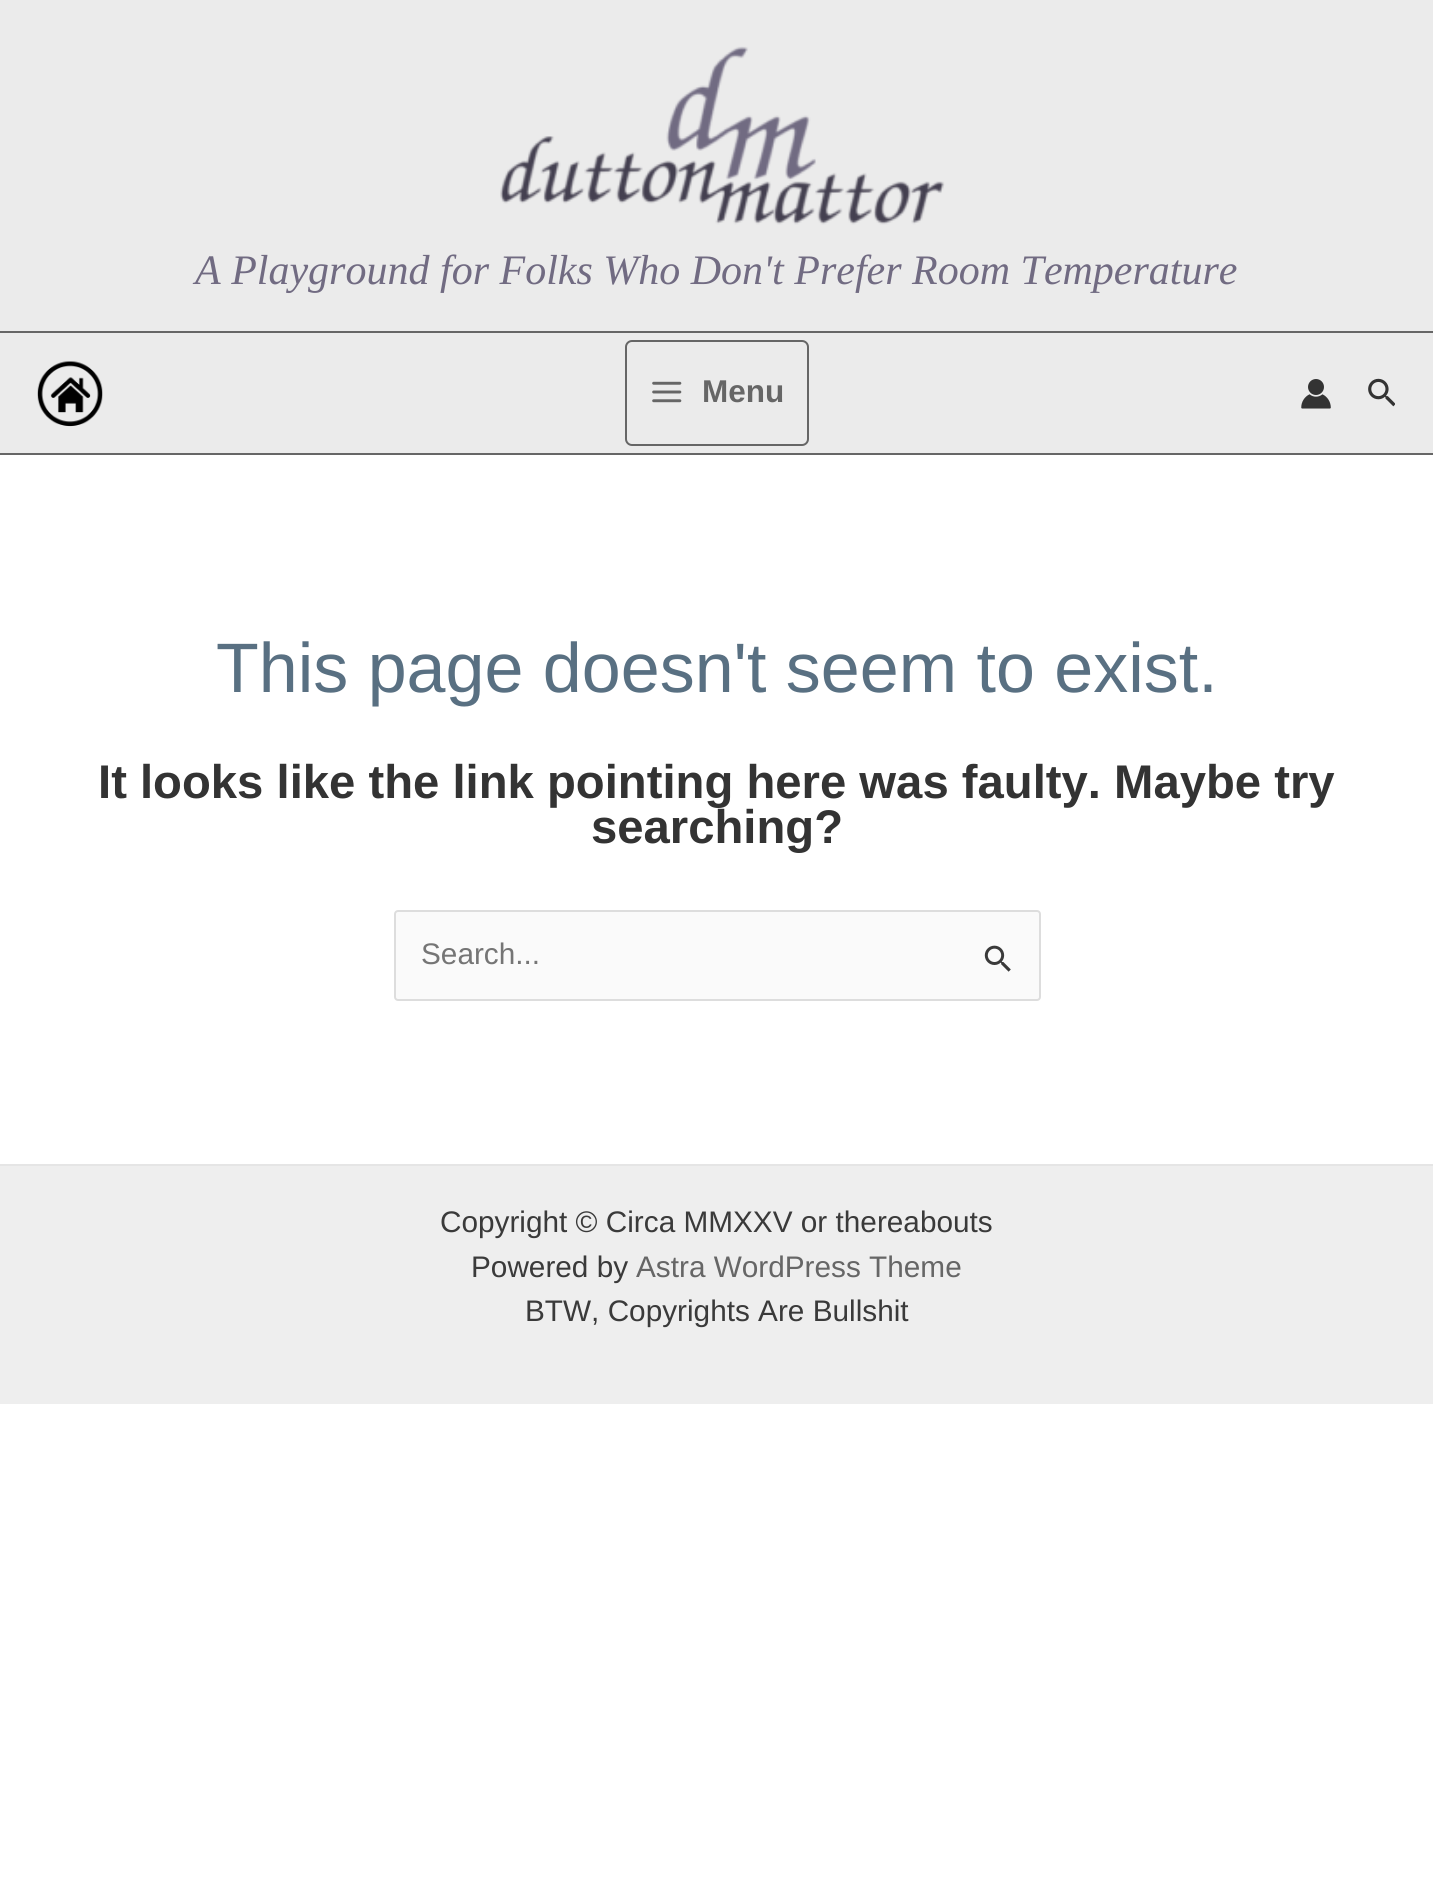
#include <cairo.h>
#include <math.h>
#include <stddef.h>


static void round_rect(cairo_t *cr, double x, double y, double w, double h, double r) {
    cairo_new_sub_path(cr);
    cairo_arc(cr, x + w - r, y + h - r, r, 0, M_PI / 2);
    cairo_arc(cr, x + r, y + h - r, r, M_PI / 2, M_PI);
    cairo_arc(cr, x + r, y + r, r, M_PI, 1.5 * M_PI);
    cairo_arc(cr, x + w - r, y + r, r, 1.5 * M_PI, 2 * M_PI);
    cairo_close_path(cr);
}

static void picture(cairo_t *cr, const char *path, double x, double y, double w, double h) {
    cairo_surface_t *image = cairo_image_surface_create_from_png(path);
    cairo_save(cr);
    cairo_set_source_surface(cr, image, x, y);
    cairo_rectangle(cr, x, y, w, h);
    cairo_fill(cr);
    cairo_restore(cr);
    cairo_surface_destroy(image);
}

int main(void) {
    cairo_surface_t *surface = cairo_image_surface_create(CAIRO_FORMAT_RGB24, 1433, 1893);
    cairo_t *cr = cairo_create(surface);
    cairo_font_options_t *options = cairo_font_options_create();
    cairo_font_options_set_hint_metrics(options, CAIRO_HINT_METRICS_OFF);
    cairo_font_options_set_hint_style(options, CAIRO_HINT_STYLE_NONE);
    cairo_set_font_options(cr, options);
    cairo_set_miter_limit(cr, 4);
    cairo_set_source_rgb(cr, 1, 1, 1);
    cairo_paint(cr);
    cairo_set_source_rgb(cr, 0.918, 0.918, 0.918);
    cairo_rectangle(cr, 0, 0, 1433, 331);
    cairo_fill(cr);
    cairo_set_source_rgb(cr, 0.4, 0.4, 0.4);
    cairo_rectangle(cr, 0, 331, 1433, 2);
    cairo_fill(cr);
    picture(cr, "img1.png", 500, 46, 445, 179);
    cairo_select_font_face(cr, "Liberation Serif", CAIRO_FONT_SLANT_ITALIC, CAIRO_FONT_WEIGHT_NORMAL);
    cairo_set_font_size(cr, 42);
    cairo_set_source_rgb(cr, 0.443, 0.42, 0.51);
    cairo_move_to(cr, 195, 284);
    cairo_show_text(cr, "A Playground for Folks Who Don't Prefer Room Temperature");
    cairo_set_source_rgb(cr, 0.918, 0.918, 0.918);
    cairo_rectangle(cr, 0, 333, 1433, 120);
    cairo_fill(cr);
    cairo_set_source_rgb(cr, 0.4, 0.4, 0.4);
    cairo_rectangle(cr, 0, 453, 1433, 2);
    cairo_fill(cr);
    picture(cr, "img2.png", 37, 361, 66, 66);
    round_rect(cr, 626, 341, 182, 104, 6);
    cairo_stroke(cr);
    picture(cr, "img3.png", 652, 381, 30, 22);
    cairo_select_font_face(cr, "Liberation Sans", CAIRO_FONT_SLANT_NORMAL, CAIRO_FONT_WEIGHT_BOLD);
    cairo_set_font_size(cr, 31.5);
    cairo_move_to(cr, 702, 402);
    cairo_show_text(cr, "Menu");
    picture(cr, "img4.png", 1301, 379, 30, 30);
    picture(cr, "img5.png", 1368, 378, 27, 29);
    cairo_select_font_face(cr, "Liberation Sans", CAIRO_FONT_SLANT_NORMAL, CAIRO_FONT_WEIGHT_NORMAL);
    cairo_set_font_size(cr, 70);
    cairo_set_source_rgb(cr, 0.349, 0.439, 0.51);
    cairo_move_to(cr, 216, 692);
    cairo_show_text(cr, "This page doesn't seem to exist.");
    cairo_select_font_face(cr, "Liberation Sans", CAIRO_FONT_SLANT_NORMAL, CAIRO_FONT_WEIGHT_BOLD);
    cairo_set_font_size(cr, 47.25);
    cairo_set_source_rgb(cr, 0.2, 0.2, 0.2);
    cairo_move_to(cr, 98, 798);
    cairo_show_text(cr, "It looks like the link pointing here was faulty. Maybe try");
    cairo_move_to(cr, 591, 843);
    cairo_show_text(cr, "searching?");
    cairo_set_source_rgb(cr, 0.98, 0.98, 0.98);
    round_rect(cr, 395, 911, 645, 89, 3);
    cairo_fill_preserve(cr);
    cairo_set_source_rgb(cr, 0.867, 0.867, 0.867);
    cairo_stroke(cr);
    cairo_select_font_face(cr, "Liberation Sans", CAIRO_FONT_SLANT_NORMAL, CAIRO_FONT_WEIGHT_NORMAL);
    cairo_set_font_size(cr, 29.75);
    cairo_set_source_rgb(cr, 0.459, 0.459, 0.459);
    cairo_move_to(cr, 421, 964);
    cairo_show_text(cr, "Search...");
    picture(cr, "img6.png", 984, 945, 27, 27);
    cairo_set_source_rgb(cr, 0.933, 0.933, 0.933);
    cairo_rectangle(cr, 0, 1166, 1433, 238);
    cairo_fill(cr);
    cairo_set_source_rgb(cr, 0.898, 0.898, 0.898);
    cairo_rectangle(cr, 0, 1164, 1433, 2);
    cairo_fill(cr);
    cairo_set_source_rgb(cr, 0.227, 0.227, 0.227);
    cairo_move_to(cr, 440, 1232);
    cairo_show_text(cr, "Copyright © Circa MMXXV or thereabouts");
    cairo_move_to(cr, 471, 1277);
    cairo_show_text(cr, "Powered by");
    cairo_set_source_rgb(cr, 0.4, 0.4, 0.4);
    cairo_move_to(cr, 636, 1277);
    cairo_show_text(cr, "Astra WordPress Theme");
    cairo_set_source_rgb(cr, 0.227, 0.227, 0.227);
    cairo_move_to(cr, 525, 1321);
    cairo_show_text(cr, "BTW, Copyrights Are Bullshit");
    cairo_surface_write_to_png(surface, "page.png");
    cairo_font_options_destroy(options);
    cairo_destroy(cr);
    cairo_surface_destroy(surface);
    return 0;
}
